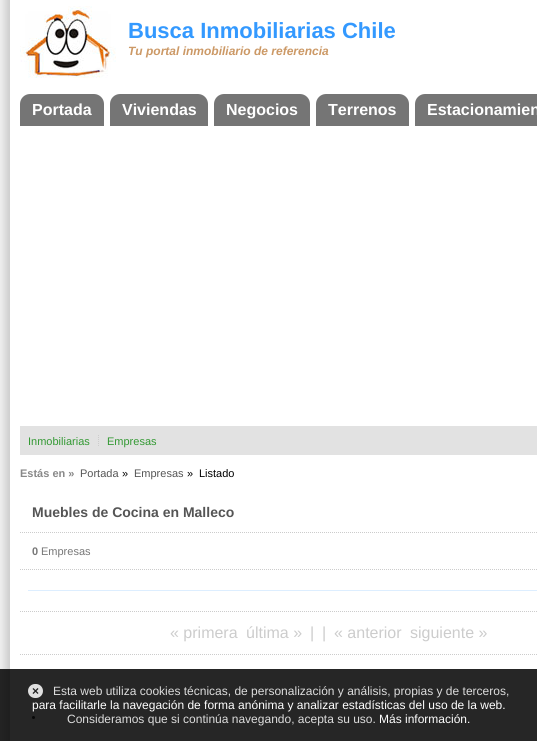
#include <cairo.h>
#include <math.h>
#include <stddef.h>


static void round_rect(cairo_t *cr, double x, double y, double w, double h, double r) {
    cairo_new_sub_path(cr);
    cairo_arc(cr, x + w - r, y + h - r, r, 0, M_PI / 2);
    cairo_arc(cr, x + r, y + h - r, r, M_PI / 2, M_PI);
    cairo_arc(cr, x + r, y + r, r, M_PI, 1.5 * M_PI);
    cairo_arc(cr, x + w - r, y + r, r, 1.5 * M_PI, 2 * M_PI);
    cairo_close_path(cr);
}

static void picture(cairo_t *cr, const char *path, double x, double y, double w, double h) {
    cairo_surface_t *image = cairo_image_surface_create_from_png(path);
    cairo_save(cr);
    cairo_set_source_surface(cr, image, x, y);
    cairo_rectangle(cr, x, y, w, h);
    cairo_fill(cr);
    cairo_restore(cr);
    cairo_surface_destroy(image);
}

int main(void) {
    cairo_surface_t *surface = cairo_image_surface_create(CAIRO_FORMAT_RGB24, 537, 741);
    cairo_t *cr = cairo_create(surface);
    cairo_font_options_t *options = cairo_font_options_create();
    cairo_font_options_set_hint_metrics(options, CAIRO_HINT_METRICS_OFF);
    cairo_font_options_set_hint_style(options, CAIRO_HINT_STYLE_NONE);
    cairo_set_font_options(cr, options);
    cairo_set_miter_limit(cr, 4);
    cairo_set_source_rgb(cr, 1, 1, 1);
    cairo_paint(cr);
    picture(cr, "img1.png", 0, 0, 10, 741);
    picture(cr, "img2.png", 20, 6, 96, 72);
    cairo_select_font_face(cr, "Liberation Sans", CAIRO_FONT_SLANT_NORMAL, CAIRO_FONT_WEIGHT_BOLD);
    cairo_set_font_size(cr, 22);
    cairo_set_source_rgb(cr, 0.2, 0.6, 1);
    cairo_move_to(cr, 128, 38);
    cairo_show_text(cr, "Busca Inmobiliarias Chile");
    cairo_select_font_face(cr, "Liberation Sans", CAIRO_FONT_SLANT_ITALIC, CAIRO_FONT_WEIGHT_BOLD);
    cairo_set_font_size(cr, 12);
    cairo_set_source_rgb(cr, 0.8, 0.6, 0.4);
    cairo_move_to(cr, 128, 55);
    cairo_show_text(cr, "Tu portal inmobiliario de referencia");
    cairo_set_source_rgb(cr, 0.459, 0.459, 0.459);
    cairo_new_path(cr);
    cairo_move_to(cr, 30, 94);
    cairo_line_to(cr, 94, 94);
    cairo_curve_to(cr, 99.5, 94, 104, 98.5, 104, 104);
    cairo_line_to(cr, 104, 126);
    cairo_line_to(cr, 20, 126);
    cairo_line_to(cr, 20, 104);
    cairo_curve_to(cr, 20, 98.5, 24.5, 94, 30, 94);
    cairo_close_path(cr);
    cairo_fill(cr);
    cairo_select_font_face(cr, "Liberation Sans", CAIRO_FONT_SLANT_NORMAL, CAIRO_FONT_WEIGHT_BOLD);
    cairo_set_font_size(cr, 16);
    cairo_set_source_rgb(cr, 1, 1, 1);
    cairo_move_to(cr, 32, 115);
    cairo_show_text(cr, "Portada");
    cairo_set_source_rgb(cr, 0.459, 0.459, 0.459);
    cairo_new_path(cr);
    cairo_move_to(cr, 120, 94);
    cairo_line_to(cr, 198, 94);
    cairo_curve_to(cr, 203.5, 94, 208, 98.5, 208, 104);
    cairo_line_to(cr, 208, 126);
    cairo_line_to(cr, 110, 126);
    cairo_line_to(cr, 110, 104);
    cairo_curve_to(cr, 110, 98.5, 114.5, 94, 120, 94);
    cairo_close_path(cr);
    cairo_fill(cr);
    cairo_set_source_rgb(cr, 1, 1, 1);
    cairo_move_to(cr, 122, 115);
    cairo_show_text(cr, "Viviendas");
    cairo_set_source_rgb(cr, 0.459, 0.459, 0.459);
    cairo_new_path(cr);
    cairo_move_to(cr, 224, 94);
    cairo_line_to(cr, 300, 94);
    cairo_curve_to(cr, 305.5, 94, 310, 98.5, 310, 104);
    cairo_line_to(cr, 310, 126);
    cairo_line_to(cr, 214, 126);
    cairo_line_to(cr, 214, 104);
    cairo_curve_to(cr, 214, 98.5, 218.5, 94, 224, 94);
    cairo_close_path(cr);
    cairo_fill(cr);
    cairo_set_source_rgb(cr, 1, 1, 1);
    cairo_move_to(cr, 226, 115);
    cairo_show_text(cr, "Negocios");
    cairo_set_source_rgb(cr, 0.459, 0.459, 0.459);
    cairo_new_path(cr);
    cairo_move_to(cr, 326, 94);
    cairo_line_to(cr, 399, 94);
    cairo_curve_to(cr, 404.5, 94, 409, 98.5, 409, 104);
    cairo_line_to(cr, 409, 126);
    cairo_line_to(cr, 316, 126);
    cairo_line_to(cr, 316, 104);
    cairo_curve_to(cr, 316, 98.5, 320.5, 94, 326, 94);
    cairo_close_path(cr);
    cairo_fill(cr);
    cairo_set_source_rgb(cr, 1, 1, 1);
    cairo_move_to(cr, 328, 115);
    cairo_show_text(cr, "Terrenos");
    cairo_set_source_rgb(cr, 0.459, 0.459, 0.459);
    cairo_new_path(cr);
    cairo_move_to(cr, 425, 94);
    cairo_line_to(cr, 537, 94);
    cairo_curve_to(cr, 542.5, 94, 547, 98.5, 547, 104);
    cairo_line_to(cr, 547, 126);
    cairo_line_to(cr, 415, 126);
    cairo_line_to(cr, 415, 104);
    cairo_curve_to(cr, 415, 98.5, 419.5, 94, 425, 94);
    cairo_close_path(cr);
    cairo_fill(cr);
    cairo_set_source_rgb(cr, 1, 1, 1);
    cairo_move_to(cr, 427, 115);
    cairo_show_text(cr, "Estacionamien");
    cairo_set_source_rgb(cr, 0.886, 0.886, 0.886);
    cairo_rectangle(cr, 20, 426, 517, 29);
    cairo_fill(cr);
    cairo_select_font_face(cr, "Liberation Sans", CAIRO_FONT_SLANT_NORMAL, CAIRO_FONT_WEIGHT_NORMAL);
    cairo_set_font_size(cr, 11);
    cairo_set_source_rgb(cr, 0.2, 0.6, 0.2);
    cairo_move_to(cr, 28, 445);
    cairo_show_text(cr, "Inmobiliarias");
    cairo_new_path(cr);
    cairo_move_to(cr, 98.5, 435);
    cairo_line_to(cr, 98.5, 447);
    cairo_set_source_rgb(cr, 0.8, 0.8, 0.8);
    cairo_set_line_width(cr, 1);
    cairo_set_dash(cr, (double[]){1, 1}, 2, 0);
    cairo_stroke(cr);
    cairo_set_source_rgb(cr, 0.2, 0.6, 0.2);
    cairo_move_to(cr, 107, 445);
    cairo_show_text(cr, "Empresas");
    cairo_select_font_face(cr, "Liberation Sans", CAIRO_FONT_SLANT_NORMAL, CAIRO_FONT_WEIGHT_BOLD);
    cairo_set_source_rgb(cr, 0.533, 0.533, 0.533);
    cairo_move_to(cr, 20, 477);
    cairo_show_text(cr, "Estás en »");
    cairo_select_font_face(cr, "Liberation Sans", CAIRO_FONT_SLANT_NORMAL, CAIRO_FONT_WEIGHT_NORMAL);
    cairo_set_source_rgb(cr, 0.333, 0.333, 0.333);
    cairo_move_to(cr, 80, 477);
    cairo_show_text(cr, "Portada");
    cairo_set_source_rgb(cr, 0, 0, 0);
    cairo_move_to(cr, 122, 477);
    cairo_show_text(cr, "»");
    cairo_set_source_rgb(cr, 0.333, 0.333, 0.333);
    cairo_move_to(cr, 134, 477);
    cairo_show_text(cr, "Empresas");
    cairo_set_source_rgb(cr, 0, 0, 0);
    cairo_move_to(cr, 187, 477);
    cairo_show_text(cr, "»");
    cairo_move_to(cr, 199, 477);
    cairo_show_text(cr, "Listado");
    cairo_select_font_face(cr, "Liberation Sans", CAIRO_FONT_SLANT_NORMAL, CAIRO_FONT_WEIGHT_BOLD);
    cairo_set_font_size(cr, 14);
    cairo_set_source_rgb(cr, 0.333, 0.333, 0.333);
    cairo_move_to(cr, 32, 517);
    cairo_show_text(cr, "Muebles de Cocina en Malleco");
    cairo_new_path(cr);
    cairo_move_to(cr, 20, 532.5);
    cairo_line_to(cr, 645, 532.5);
    cairo_set_source_rgb(cr, 0.8, 0.8, 0.8);
    cairo_stroke(cr);
    cairo_new_path(cr);
    cairo_move_to(cr, 20, 654.5);
    cairo_line_to(cr, 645, 654.5);
    cairo_stroke(cr);
    cairo_new_path(cr);
    cairo_move_to(cr, 20, 569.5);
    cairo_line_to(cr, 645, 569.5);
    cairo_stroke(cr);
    cairo_set_font_size(cr, 11);
    cairo_set_source_rgb(cr, 0.467, 0.467, 0.467);
    cairo_move_to(cr, 32, 555);
    cairo_show_text(cr, "0");
    cairo_select_font_face(cr, "Liberation Sans", CAIRO_FONT_SLANT_NORMAL, CAIRO_FONT_WEIGHT_NORMAL);
    cairo_move_to(cr, 41, 555);
    cairo_show_text(cr, "Empresas");
    cairo_set_source_rgb(cr, 0.867, 0.933, 1);
    cairo_rectangle(cr, 28, 590, 509, 1);
    cairo_fill(cr);
    cairo_new_path(cr);
    cairo_move_to(cr, 20, 611.5);
    cairo_line_to(cr, 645, 611.5);
    cairo_set_source_rgb(cr, 0.8, 0.8, 0.8);
    cairo_stroke(cr);
    cairo_set_font_size(cr, 16);
    cairo_move_to(cr, 170, 638);
    cairo_show_text(cr, "« primera");
    cairo_move_to(cr, 246, 638);
    cairo_show_text(cr, "última »");
    cairo_move_to(cr, 310, 638);
    cairo_show_text(cr, "|");
    cairo_move_to(cr, 322, 638);
    cairo_show_text(cr, "|");
    cairo_move_to(cr, 334, 638);
    cairo_show_text(cr, "« anterior");
    cairo_move_to(cr, 410, 638);
    cairo_show_text(cr, "siguiente »");
    cairo_set_source_rgb(cr, 0.2, 0.2, 0.2);
    cairo_new_path(cr);
    cairo_arc(cr, 33.5, 717.5, 1.5, 0, 2 * M_PI);
    cairo_fill(cr);
    cairo_arc(cr, 245.5, 717.5, 1.5, 0, 2 * M_PI);
    cairo_fill(cr);
    cairo_set_source_rgba(cr, 0, 0, 0, 0.85);
    cairo_rectangle(cr, 0, 669, 537, 72);
    cairo_fill(cr);
    cairo_set_source_rgba(cr, 1, 1, 1, 0.85);
    round_rect(cr, 28, 684, 15, 14, 7);
    cairo_fill(cr);
    cairo_select_font_face(cr, "Liberation Sans", CAIRO_FONT_SLANT_NORMAL, CAIRO_FONT_WEIGHT_BOLD);
    cairo_set_font_size(cr, 12);
    cairo_set_source_rgb(cr, 0.129, 0.129, 0.129);
    cairo_move_to(cr, 32, 695);
    cairo_show_text(cr, "×");
    cairo_select_font_face(cr, "Liberation Sans", CAIRO_FONT_SLANT_NORMAL, CAIRO_FONT_WEIGHT_NORMAL);
    cairo_set_source_rgb(cr, 0.867, 0.867, 0.867);
    cairo_move_to(cr, 53, 695);
    cairo_show_text(cr, "Esta web utiliza cookies técnicas, de personalización y análisis, propias y de terceros,");
    cairo_set_source_rgb(cr, 1, 1, 1);
    cairo_move_to(cr, 32, 709);
    cairo_show_text(cr, "para facilitarle la navegación de forma anónima y analizar estadísticas del uso de la web.");
    cairo_set_source_rgb(cr, 0.867, 0.867, 0.867);
    cairo_move_to(cr, 67, 723);
    cairo_show_text(cr, "Consideramos que si continúa navegando, acepta su uso.");
    cairo_set_source_rgb(cr, 1, 1, 1);
    cairo_move_to(cr, 379, 723);
    cairo_show_text(cr, "Más información.");
    cairo_surface_write_to_png(surface, "page.png");
    cairo_font_options_destroy(options);
    cairo_destroy(cr);
    cairo_surface_destroy(surface);
    return 0;
}
